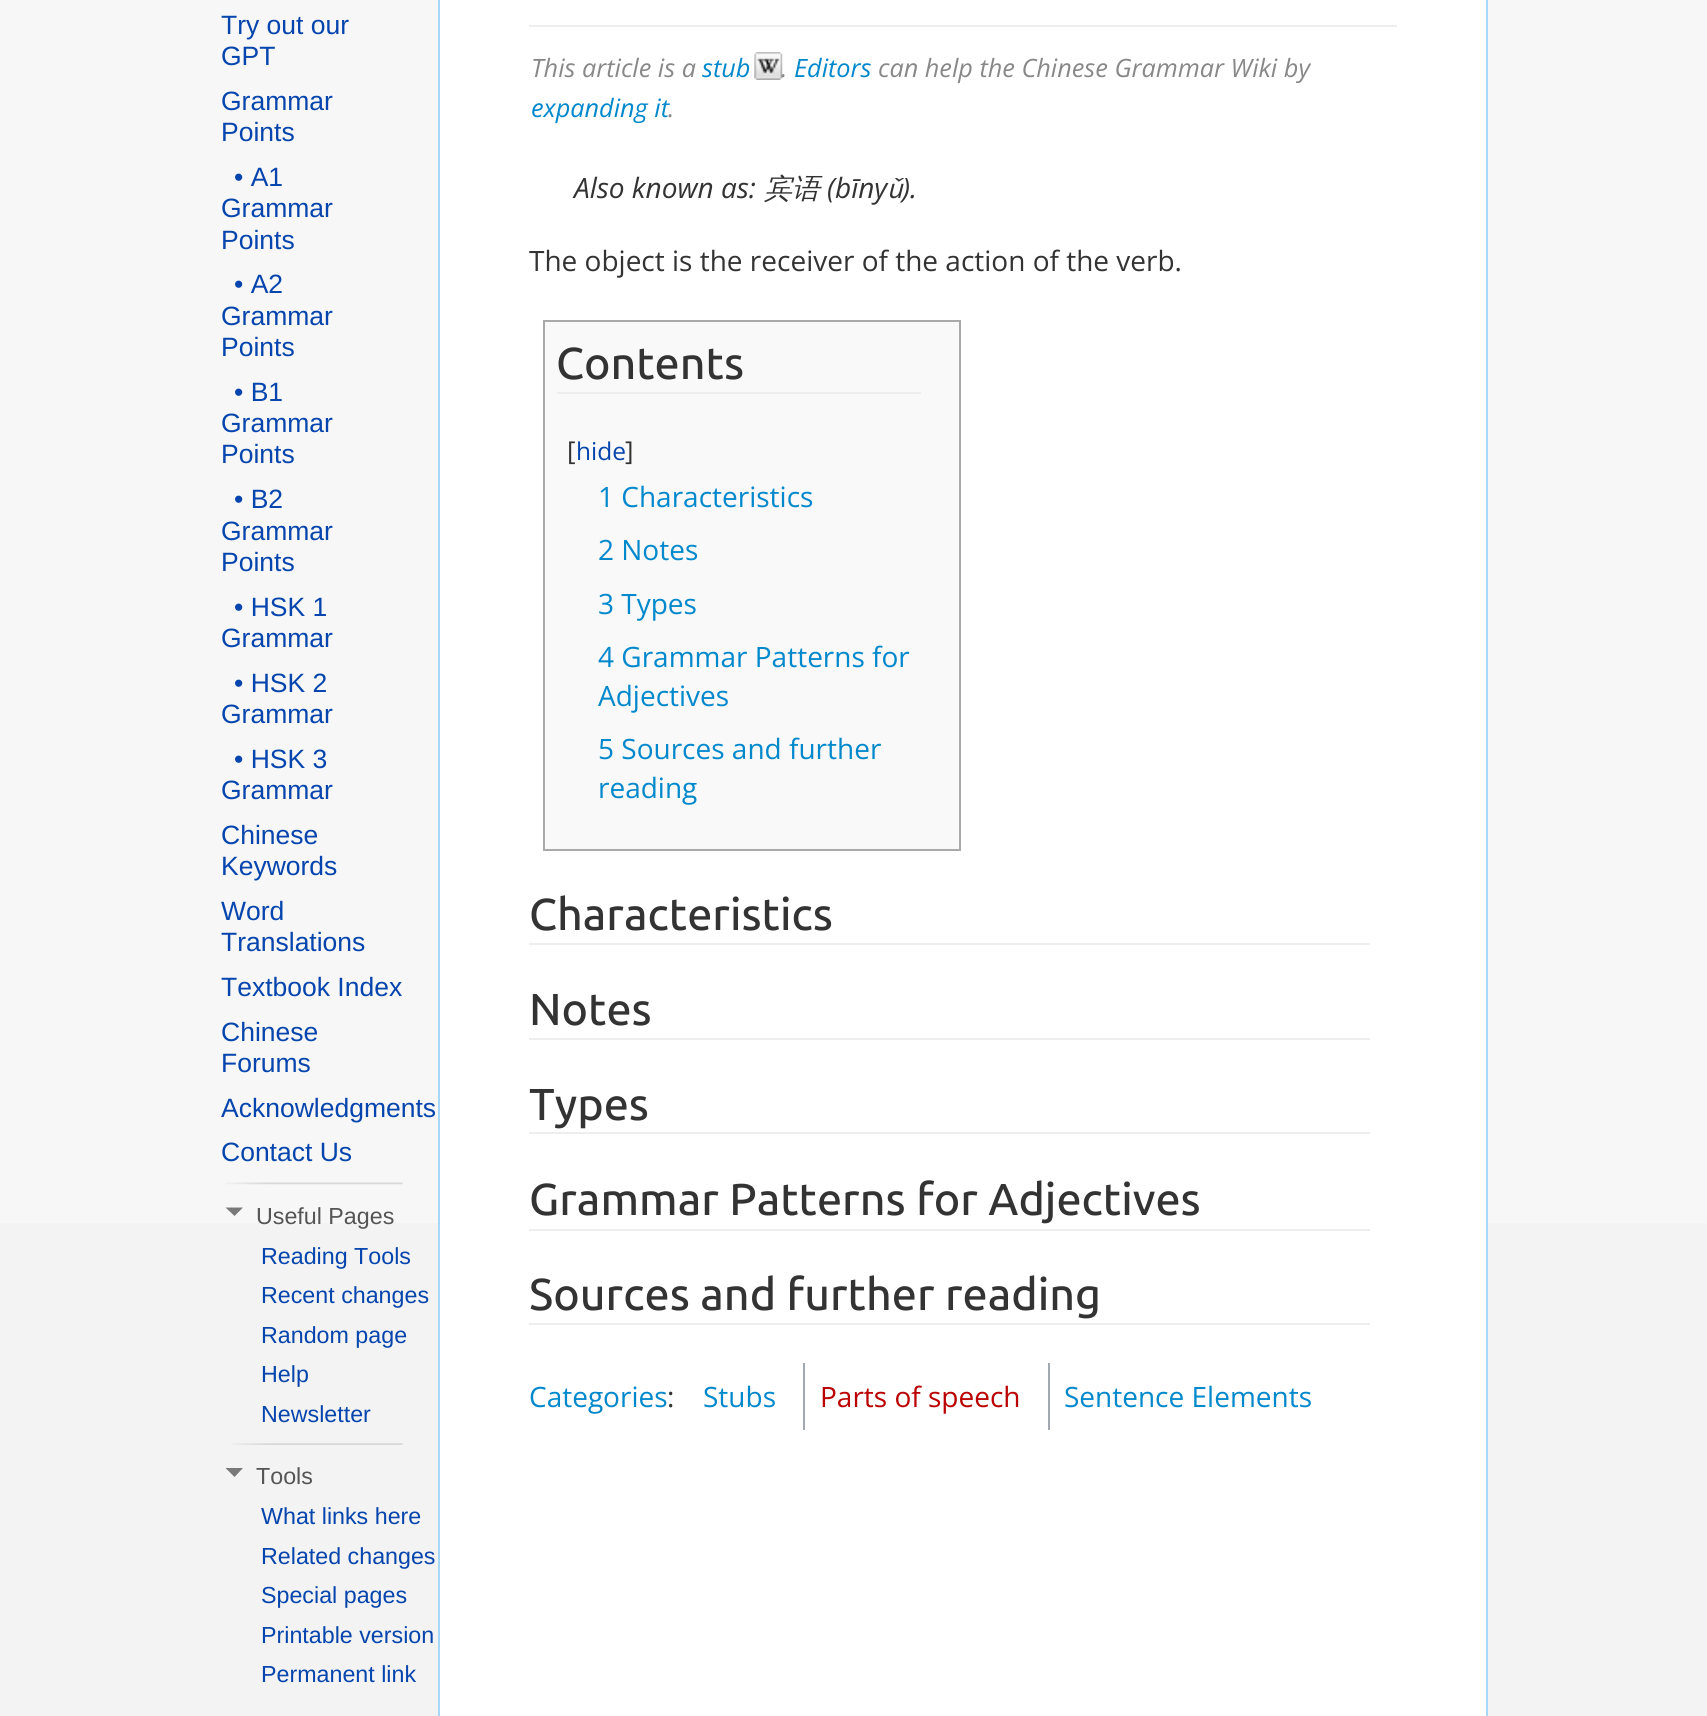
#include <cairo.h>
#include <math.h>
#include <stddef.h>


static void picture(cairo_t *cr, const char *path, double x, double y, double w, double h) {
    cairo_surface_t *image = cairo_image_surface_create_from_png(path);
    cairo_save(cr);
    cairo_set_source_surface(cr, image, x, y);
    cairo_rectangle(cr, x, y, w, h);
    cairo_fill(cr);
    cairo_restore(cr);
    cairo_surface_destroy(image);
}

int main(void) {
    cairo_surface_t *surface = cairo_image_surface_create(CAIRO_FORMAT_RGB24, 1707, 1716);
    cairo_t *cr = cairo_create(surface);
    cairo_font_options_t *options = cairo_font_options_create();
    cairo_font_options_set_hint_metrics(options, CAIRO_HINT_METRICS_OFF);
    cairo_font_options_set_hint_style(options, CAIRO_HINT_STYLE_NONE);
    cairo_set_font_options(cr, options);
    cairo_set_miter_limit(cr, 4);
    cairo_set_source_rgb(cr, 0.953, 0.953, 0.953);
    cairo_paint(cr);
    cairo_set_source_rgb(cr, 0.965, 0.965, 0.965);
    cairo_rectangle(cr, 0, 0, 1707, 1223);
    cairo_fill(cr);
    cairo_select_font_face(cr, "Liberation Sans", CAIRO_FONT_SLANT_NORMAL, CAIRO_FONT_WEIGHT_NORMAL);
    cairo_set_font_size(cr, 26.5);
    cairo_set_source_rgb(cr, 0.024, 0.271, 0.678);
    cairo_move_to(cr, 221, 34);
    cairo_show_text(cr, "Try out our");
    cairo_move_to(cr, 221, 65);
    cairo_show_text(cr, "GPT");
    cairo_move_to(cr, 221, 110);
    cairo_show_text(cr, "Grammar");
    cairo_move_to(cr, 221, 141);
    cairo_show_text(cr, "Points");
    cairo_move_to(cr, 234, 186);
    cairo_show_text(cr, "• A1");
    cairo_move_to(cr, 221, 217);
    cairo_show_text(cr, "Grammar");
    cairo_move_to(cr, 221, 249);
    cairo_show_text(cr, "Points");
    cairo_move_to(cr, 234, 293);
    cairo_show_text(cr, "• A2");
    cairo_move_to(cr, 221, 325);
    cairo_show_text(cr, "Grammar");
    cairo_move_to(cr, 221, 356);
    cairo_show_text(cr, "Points");
    cairo_move_to(cr, 234, 401);
    cairo_show_text(cr, "• B1");
    cairo_move_to(cr, 221, 432);
    cairo_show_text(cr, "Grammar");
    cairo_move_to(cr, 221, 463);
    cairo_show_text(cr, "Points");
    cairo_move_to(cr, 234, 508);
    cairo_show_text(cr, "• B2");
    cairo_move_to(cr, 221, 540);
    cairo_show_text(cr, "Grammar");
    cairo_move_to(cr, 221, 571);
    cairo_show_text(cr, "Points");
    cairo_move_to(cr, 234, 616);
    cairo_show_text(cr, "• HSK 1");
    cairo_move_to(cr, 221, 647);
    cairo_show_text(cr, "Grammar");
    cairo_move_to(cr, 234, 692);
    cairo_show_text(cr, "• HSK 2");
    cairo_move_to(cr, 221, 723);
    cairo_show_text(cr, "Grammar");
    cairo_move_to(cr, 234, 768);
    cairo_show_text(cr, "• HSK 3");
    cairo_move_to(cr, 221, 799);
    cairo_show_text(cr, "Grammar");
    cairo_move_to(cr, 221, 844);
    cairo_show_text(cr, "Chinese");
    cairo_move_to(cr, 221, 875);
    cairo_show_text(cr, "Keywords");
    cairo_move_to(cr, 221, 920);
    cairo_show_text(cr, "Word");
    cairo_move_to(cr, 221, 951);
    cairo_show_text(cr, "Translations");
    cairo_move_to(cr, 221, 996);
    cairo_show_text(cr, "Textbook Index");
    cairo_move_to(cr, 221, 1041);
    cairo_show_text(cr, "Chinese");
    cairo_move_to(cr, 221, 1072);
    cairo_show_text(cr, "Forums");
    cairo_move_to(cr, 221, 1117);
    cairo_show_text(cr, "Acknowledgments");
    cairo_move_to(cr, 221, 1161);
    cairo_show_text(cr, "Contact Us");
    picture(cr, "img1.png", 225, 1182, 178, 3);
    cairo_set_source_rgb(cr, 0.475, 0.475, 0.475);
    cairo_new_path(cr);
    cairo_move_to(cr, 243, 1207.5);
    cairo_line_to(cr, 234.5, 1216);
    cairo_line_to(cr, 225.5, 1207.5);
    cairo_close_path(cr);
    cairo_fill(cr);
    cairo_set_font_size(cr, 23.25);
    cairo_set_source_rgb(cr, 0.333, 0.333, 0.333);
    cairo_move_to(cr, 256, 1224);
    cairo_show_text(cr, "Useful Pages");
    cairo_set_source_rgb(cr, 0.024, 0.271, 0.678);
    cairo_move_to(cr, 261, 1264);
    cairo_show_text(cr, "Reading Tools");
    cairo_move_to(cr, 261, 1303);
    cairo_show_text(cr, "Recent changes");
    cairo_move_to(cr, 261, 1343);
    cairo_show_text(cr, "Random page");
    cairo_move_to(cr, 261, 1382);
    cairo_show_text(cr, "Help");
    cairo_move_to(cr, 261, 1422);
    cairo_show_text(cr, "Newsletter");
    picture(cr, "img2.png", 232, 1443, 171, 2);
    cairo_set_source_rgb(cr, 0.475, 0.475, 0.475);
    cairo_new_path(cr);
    cairo_move_to(cr, 243, 1468);
    cairo_line_to(cr, 234.5, 1477);
    cairo_line_to(cr, 225.5, 1468);
    cairo_close_path(cr);
    cairo_fill(cr);
    cairo_set_source_rgb(cr, 0.333, 0.333, 0.333);
    cairo_move_to(cr, 256, 1484);
    cairo_show_text(cr, "Tools");
    cairo_set_source_rgb(cr, 0.024, 0.271, 0.678);
    cairo_move_to(cr, 261, 1524);
    cairo_show_text(cr, "What links here");
    cairo_move_to(cr, 261, 1564);
    cairo_show_text(cr, "Related changes");
    cairo_move_to(cr, 261, 1603);
    cairo_show_text(cr, "Special pages");
    cairo_move_to(cr, 261, 1643);
    cairo_show_text(cr, "Printable version");
    cairo_move_to(cr, 261, 1682);
    cairo_show_text(cr, "Permanent link");
    cairo_set_source_rgb(cr, 1, 1, 1);
    cairo_rectangle(cr, 440, 0, 1046, 1716);
    cairo_fill(cr);
    cairo_set_source_rgb(cr, 0.655, 0.843, 0.976);
    cairo_rectangle(cr, 1486, 0, 2, 1716);
    cairo_fill(cr);
    cairo_rectangle(cr, 438, 0, 2, 1716);
    cairo_fill(cr);
    cairo_set_source_rgb(cr, 0.933, 0.933, 0.933);
    cairo_rectangle(cr, 529, 25, 868, 2);
    cairo_fill(cr);
    cairo_select_font_face(cr, "Open Sans", CAIRO_FONT_SLANT_ITALIC, CAIRO_FONT_WEIGHT_NORMAL);
    cairo_set_font_size(cr, 25.25);
    cairo_set_source_rgb(cr, 0.533, 0.533, 0.533);
    cairo_move_to(cr, 531, 77);
    cairo_show_text(cr, "This article is a");
    cairo_set_source_rgb(cr, 0, 0.533, 0.8);
    cairo_move_to(cr, 702, 77);
    cairo_show_text(cr, "stub");
    picture(cr, "img3.png", 754, 52, 29, 28);
    cairo_move_to(cr, 794, 77);
    cairo_show_text(cr, "Editors");
    cairo_set_source_rgb(cr, 0.533, 0.533, 0.533);
    cairo_move_to(cr, 878, 77);
    cairo_show_text(cr, "can help the Chinese Grammar Wiki by");
    cairo_move_to(cr, 781, 77);
    cairo_show_text(cr, ".");
    cairo_set_source_rgb(cr, 0, 0.533, 0.8);
    cairo_move_to(cr, 531, 117);
    cairo_show_text(cr, "expanding it");
    cairo_set_source_rgb(cr, 0.533, 0.533, 0.533);
    cairo_move_to(cr, 668, 117);
    cairo_show_text(cr, ".");
    cairo_set_font_size(cr, 28);
    cairo_set_source_rgb(cr, 0.2, 0.2, 0.2);
    cairo_move_to(cr, 574, 198);
    cairo_show_text(cr, "Also known as:");
    cairo_select_font_face(cr, "WenQuanYi Zen Hei Medium", CAIRO_FONT_SLANT_ITALIC, CAIRO_FONT_WEIGHT_NORMAL);
    cairo_move_to(cr, 764, 198);
    cairo_show_text(cr, "宾语");
    cairo_select_font_face(cr, "Open Sans", CAIRO_FONT_SLANT_ITALIC, CAIRO_FONT_WEIGHT_NORMAL);
    cairo_move_to(cr, 827, 198);
    cairo_show_text(cr, "(bīny");
    cairo_select_font_face(cr, "WenQuanYi Zen Hei Medium", CAIRO_FONT_SLANT_ITALIC, CAIRO_FONT_WEIGHT_NORMAL);
    cairo_move_to(cr, 887, 198);
    cairo_show_text(cr, "ǔ");
    cairo_select_font_face(cr, "Open Sans", CAIRO_FONT_SLANT_ITALIC, CAIRO_FONT_WEIGHT_NORMAL);
    cairo_move_to(cr, 902, 198);
    cairo_show_text(cr, ").");
    cairo_select_font_face(cr, "Open Sans", CAIRO_FONT_SLANT_NORMAL, CAIRO_FONT_WEIGHT_NORMAL);
    cairo_move_to(cr, 529, 271);
    cairo_show_text(cr, "The object is the receiver of the action of the verb.");
    cairo_set_source_rgb(cr, 0.976, 0.976, 0.976);
    cairo_rectangle(cr, 544, 321, 416, 529);
    cairo_fill_preserve(cr);
    cairo_set_source_rgb(cr, 0.667, 0.667, 0.667);
    cairo_stroke(cr);
    cairo_set_source_rgb(cr, 0.933, 0.933, 0.933);
    cairo_rectangle(cr, 557, 392, 364, 2);
    cairo_fill(cr);
    cairo_select_font_face(cr, "Ubuntu Medium", CAIRO_FONT_SLANT_NORMAL, CAIRO_FONT_WEIGHT_NORMAL);
    cairo_set_font_size(cr, 44.75);
    cairo_set_source_rgb(cr, 0.2, 0.2, 0.2);
    cairo_move_to(cr, 556, 379);
    cairo_show_text(cr, "Contents");
    cairo_select_font_face(cr, "Open Sans", CAIRO_FONT_SLANT_NORMAL, CAIRO_FONT_WEIGHT_NORMAL);
    cairo_set_font_size(cr, 26);
    cairo_move_to(cr, 567, 460);
    cairo_show_text(cr, "[");
    cairo_set_font_size(cr, 24.5);
    cairo_set_source_rgb(cr, 0.024, 0.271, 0.678);
    cairo_move_to(cr, 576, 460);
    cairo_show_text(cr, "hide");
    cairo_set_font_size(cr, 26);
    cairo_set_source_rgb(cr, 0.2, 0.2, 0.2);
    cairo_move_to(cr, 625, 460);
    cairo_show_text(cr, "]");
    cairo_set_font_size(cr, 28);
    cairo_set_source_rgb(cr, 0, 0.533, 0.8);
    cairo_move_to(cr, 598, 507);
    cairo_show_text(cr, "1 Characteristics");
    cairo_move_to(cr, 598, 560);
    cairo_show_text(cr, "2 Notes");
    cairo_move_to(cr, 598, 614);
    cairo_show_text(cr, "3 Types");
    cairo_move_to(cr, 598, 667);
    cairo_show_text(cr, "4 Grammar Patterns for");
    cairo_move_to(cr, 598, 706);
    cairo_show_text(cr, "Adjectives");
    cairo_move_to(cr, 598, 759);
    cairo_show_text(cr, "5 Sources and further");
    cairo_move_to(cr, 598, 798);
    cairo_show_text(cr, "reading");
    cairo_set_source_rgb(cr, 0.933, 0.933, 0.933);
    cairo_rectangle(cr, 529, 943, 841, 2);
    cairo_fill(cr);
    cairo_select_font_face(cr, "Ubuntu Medium", CAIRO_FONT_SLANT_NORMAL, CAIRO_FONT_WEIGHT_NORMAL);
    cairo_set_font_size(cr, 44.75);
    cairo_set_source_rgb(cr, 0.2, 0.2, 0.2);
    cairo_move_to(cr, 529, 930);
    cairo_show_text(cr, "Characteristics");
    cairo_set_source_rgb(cr, 0.933, 0.933, 0.933);
    cairo_rectangle(cr, 529, 1038, 841, 2);
    cairo_fill(cr);
    cairo_set_source_rgb(cr, 0.2, 0.2, 0.2);
    cairo_move_to(cr, 529, 1025);
    cairo_show_text(cr, "Notes");
    cairo_set_source_rgb(cr, 0.933, 0.933, 0.933);
    cairo_rectangle(cr, 529, 1132, 841, 2);
    cairo_fill(cr);
    cairo_set_source_rgb(cr, 0.2, 0.2, 0.2);
    cairo_move_to(cr, 529, 1120);
    cairo_show_text(cr, "Types");
    cairo_set_source_rgb(cr, 0.933, 0.933, 0.933);
    cairo_rectangle(cr, 529, 1229, 841, 2);
    cairo_fill(cr);
    cairo_set_source_rgb(cr, 0.2, 0.2, 0.2);
    cairo_move_to(cr, 529, 1215);
    cairo_show_text(cr, "Grammar Patterns for Adjectives");
    cairo_set_source_rgb(cr, 0.933, 0.933, 0.933);
    cairo_rectangle(cr, 529, 1323, 841, 2);
    cairo_fill(cr);
    cairo_set_source_rgb(cr, 0.2, 0.2, 0.2);
    cairo_move_to(cr, 529, 1310);
    cairo_show_text(cr, "Sources and further reading");
    cairo_select_font_face(cr, "Open Sans", CAIRO_FONT_SLANT_NORMAL, CAIRO_FONT_WEIGHT_NORMAL);
    cairo_set_font_size(cr, 28);
    cairo_set_source_rgb(cr, 0, 0.533, 0.8);
    cairo_move_to(cr, 529, 1407);
    cairo_show_text(cr, "Categories");
    cairo_set_source_rgb(cr, 0.2, 0.2, 0.2);
    cairo_move_to(cr, 667, 1407);
    cairo_show_text(cr, ":");
    cairo_set_source_rgb(cr, 0, 0.533, 0.8);
    cairo_move_to(cr, 703, 1407);
    cairo_show_text(cr, "Stubs");
    cairo_set_source_rgb(cr, 0.635, 0.663, 0.694);
    cairo_rectangle(cr, 803, 1363, 2, 67);
    cairo_fill(cr);
    cairo_set_source_rgb(cr, 0.729, 0, 0);
    cairo_move_to(cr, 820, 1407);
    cairo_show_text(cr, "Parts of speech");
    cairo_set_source_rgb(cr, 0.635, 0.663, 0.694);
    cairo_rectangle(cr, 1048, 1363, 2, 67);
    cairo_fill(cr);
    cairo_set_source_rgb(cr, 0, 0.533, 0.8);
    cairo_move_to(cr, 1064, 1407);
    cairo_show_text(cr, "Sentence Elements");
    cairo_surface_write_to_png(surface, "page.png");
    cairo_font_options_destroy(options);
    cairo_destroy(cr);
    cairo_surface_destroy(surface);
    return 0;
}
